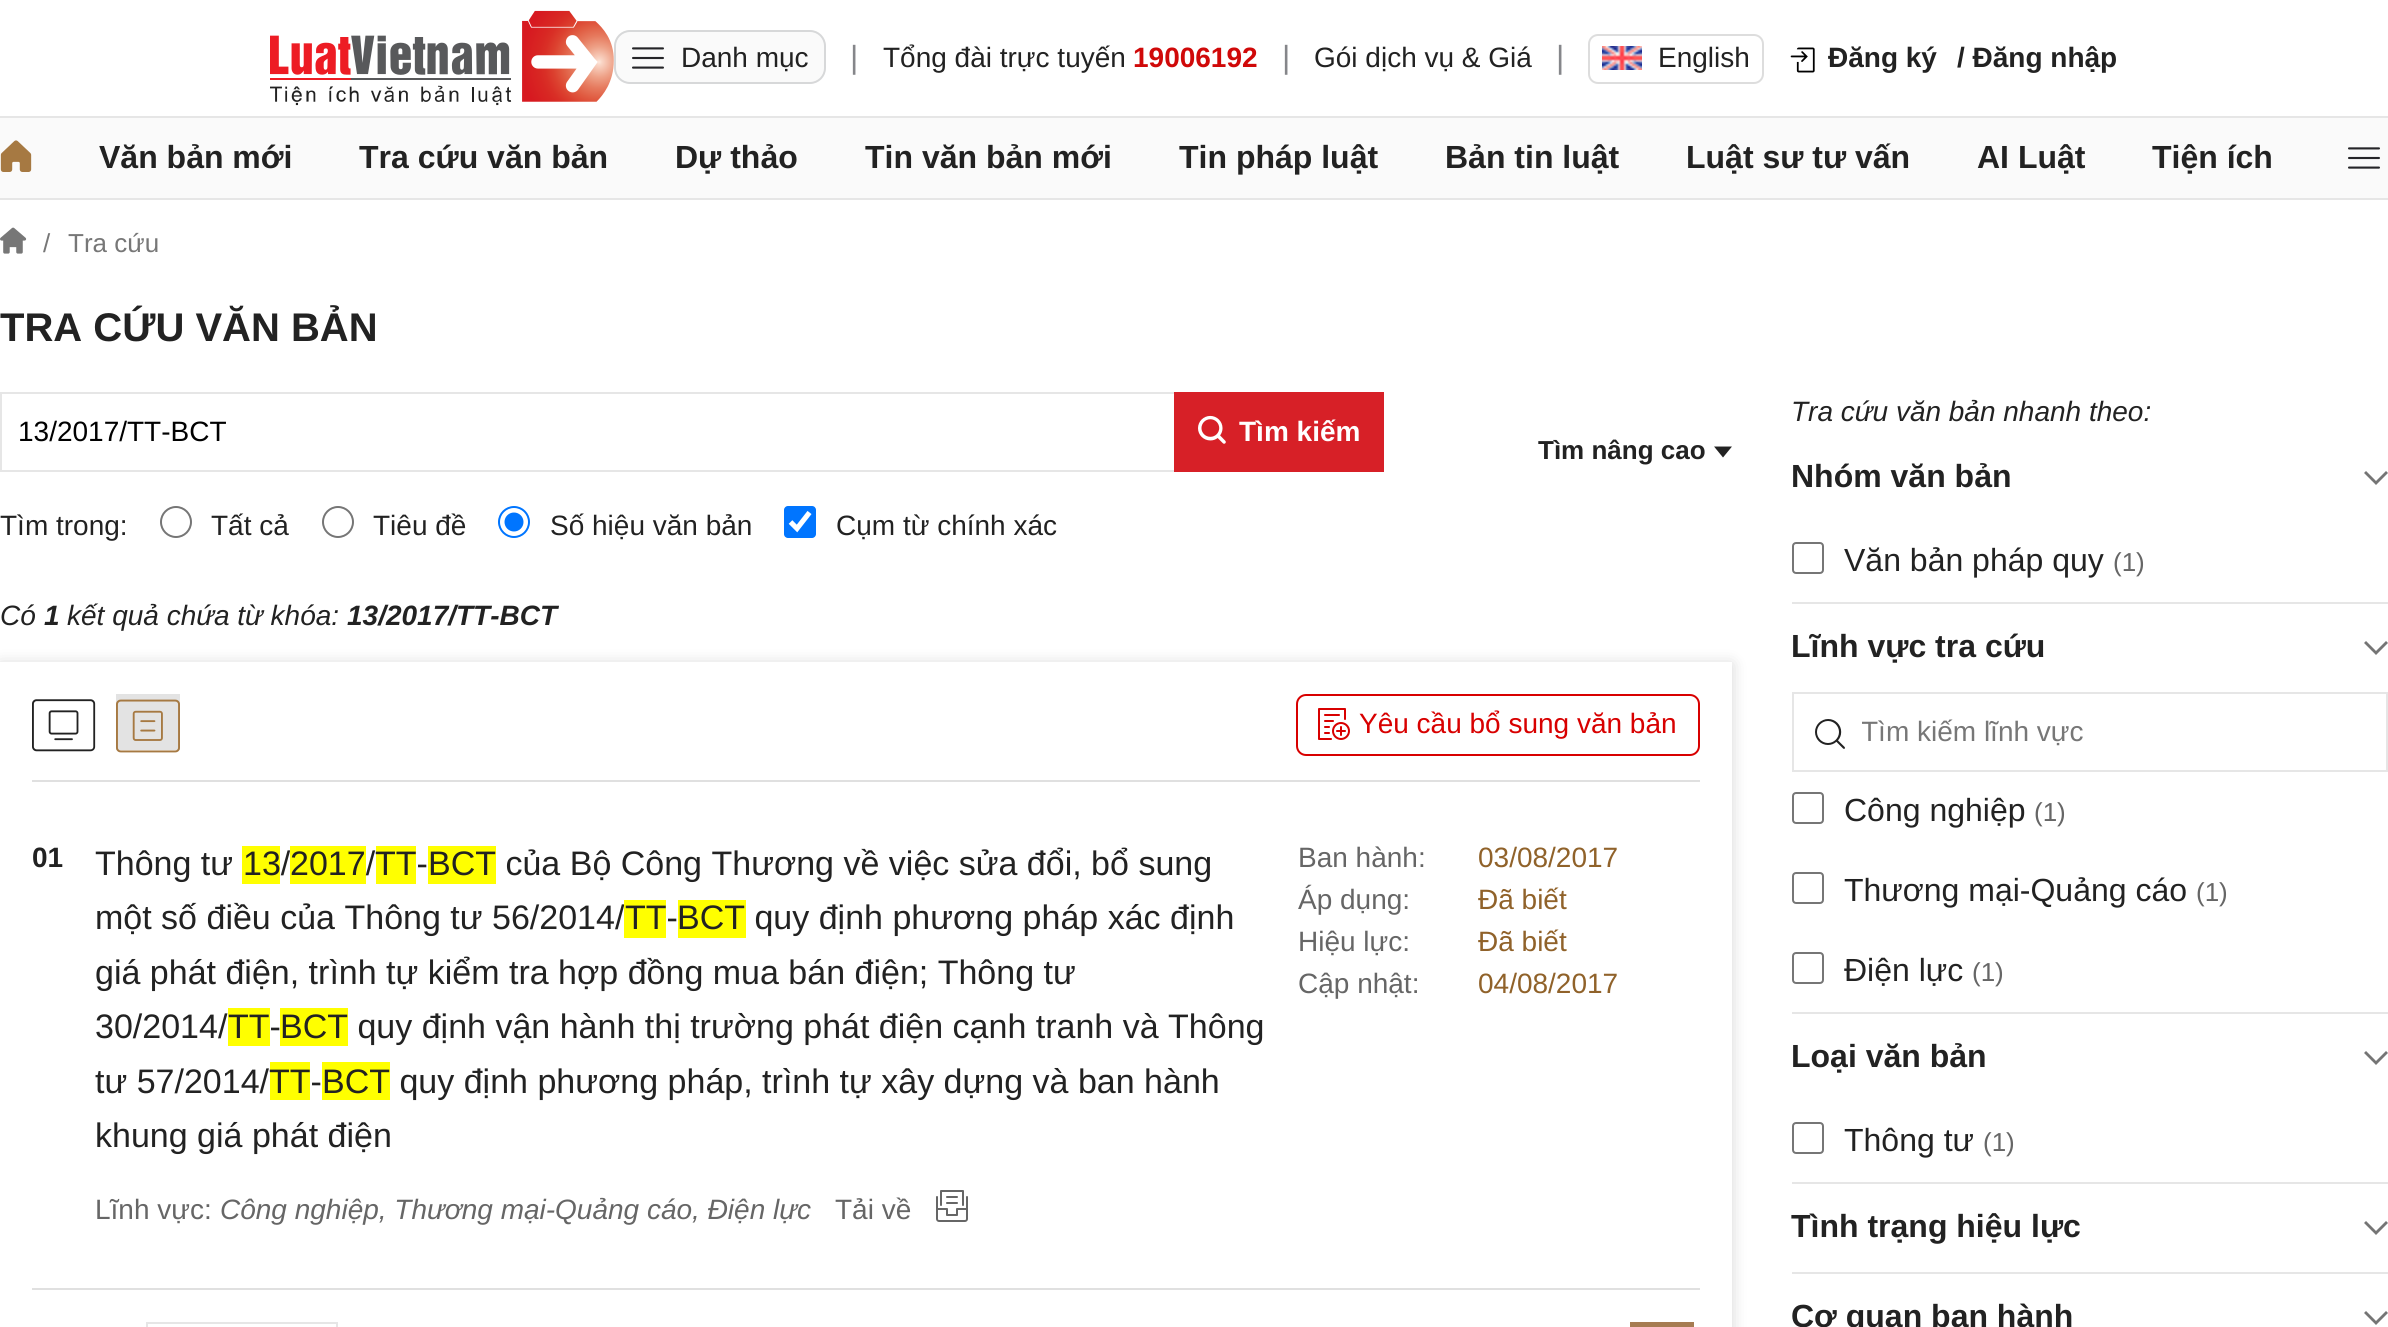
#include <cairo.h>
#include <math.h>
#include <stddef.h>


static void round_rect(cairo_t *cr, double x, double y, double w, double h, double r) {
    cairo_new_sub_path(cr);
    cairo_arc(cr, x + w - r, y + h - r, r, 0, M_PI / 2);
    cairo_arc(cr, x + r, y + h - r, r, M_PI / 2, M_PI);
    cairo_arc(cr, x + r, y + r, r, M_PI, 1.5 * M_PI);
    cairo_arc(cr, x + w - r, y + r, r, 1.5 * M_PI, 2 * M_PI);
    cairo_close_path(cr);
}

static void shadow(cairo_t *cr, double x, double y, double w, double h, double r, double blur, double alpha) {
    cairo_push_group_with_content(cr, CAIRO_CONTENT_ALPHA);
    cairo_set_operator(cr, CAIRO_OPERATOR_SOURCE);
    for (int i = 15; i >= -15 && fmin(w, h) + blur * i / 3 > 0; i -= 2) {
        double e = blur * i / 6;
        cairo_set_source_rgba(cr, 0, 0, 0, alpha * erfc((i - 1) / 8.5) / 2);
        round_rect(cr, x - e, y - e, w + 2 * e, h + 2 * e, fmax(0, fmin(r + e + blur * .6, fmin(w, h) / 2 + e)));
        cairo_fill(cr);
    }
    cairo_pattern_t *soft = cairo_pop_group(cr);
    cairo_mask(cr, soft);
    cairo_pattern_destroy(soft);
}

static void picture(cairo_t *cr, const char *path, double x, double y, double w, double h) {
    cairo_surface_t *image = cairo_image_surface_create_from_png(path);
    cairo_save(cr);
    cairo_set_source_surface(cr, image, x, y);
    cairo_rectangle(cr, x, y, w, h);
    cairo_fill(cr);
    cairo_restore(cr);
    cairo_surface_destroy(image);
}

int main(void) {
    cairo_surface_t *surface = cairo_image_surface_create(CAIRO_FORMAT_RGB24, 2388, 1327);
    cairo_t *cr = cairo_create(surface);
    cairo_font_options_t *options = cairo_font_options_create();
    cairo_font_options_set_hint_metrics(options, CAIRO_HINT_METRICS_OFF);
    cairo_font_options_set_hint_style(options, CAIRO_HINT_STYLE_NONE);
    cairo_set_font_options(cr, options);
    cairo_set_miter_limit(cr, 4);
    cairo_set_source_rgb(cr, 1, 1, 1);
    cairo_paint(cr);
    cairo_set_source_rgb(cr, 0.902, 0.902, 0.902);
    cairo_rectangle(cr, 0, 116, 2388, 2);
    cairo_fill(cr);
    picture(cr, "img1.png", 270, 10, 344, 96);
    cairo_set_source_rgb(cr, 0.98, 0.98, 0.98);
    round_rect(cr, 615, 31, 210, 52, 15);
    cairo_fill_preserve(cr);
    cairo_set_source_rgb(cr, 0.843, 0.847, 0.851);
    cairo_stroke(cr);
    picture(cr, "img2.png", 632, 47, 32, 22);
    cairo_select_font_face(cr, "Liberation Sans", CAIRO_FONT_SLANT_NORMAL, CAIRO_FONT_WEIGHT_NORMAL);
    cairo_set_font_size(cr, 28);
    cairo_set_source_rgb(cr, 0.133, 0.133, 0.133);
    cairo_move_to(cr, 681, 67);
    cairo_show_text(cr, "Danh mục");
    cairo_set_font_size(cr, 32);
    cairo_set_source_rgb(cr, 0.522, 0.525, 0.541);
    cairo_move_to(cr, 850, 68);
    cairo_show_text(cr, "|");
    cairo_set_font_size(cr, 28);
    cairo_set_source_rgb(cr, 0.133, 0.133, 0.133);
    cairo_move_to(cr, 883, 67);
    cairo_show_text(cr, "Tổng đài trực tuyến");
    cairo_select_font_face(cr, "Liberation Sans", CAIRO_FONT_SLANT_NORMAL, CAIRO_FONT_WEIGHT_BOLD);
    cairo_set_source_rgb(cr, 0.816, 0.039, 0.039);
    cairo_move_to(cr, 1133, 67);
    cairo_show_text(cr, "19006192");
    cairo_select_font_face(cr, "Liberation Sans", CAIRO_FONT_SLANT_NORMAL, CAIRO_FONT_WEIGHT_NORMAL);
    cairo_set_font_size(cr, 32);
    cairo_set_source_rgb(cr, 0.522, 0.525, 0.541);
    cairo_move_to(cr, 1282, 68);
    cairo_show_text(cr, "|");
    cairo_set_font_size(cr, 28);
    cairo_set_source_rgb(cr, 0.133, 0.133, 0.133);
    cairo_move_to(cr, 1314, 67);
    cairo_show_text(cr, "Gói dịch vụ & Giá");
    cairo_set_font_size(cr, 32);
    cairo_set_source_rgb(cr, 0.522, 0.525, 0.541);
    cairo_move_to(cr, 1556, 68);
    cairo_show_text(cr, "|");
    round_rect(cr, 1589, 35, 174, 48, 9);
    cairo_set_source_rgb(cr, 0.867, 0.867, 0.867);
    cairo_stroke(cr);
    picture(cr, "img3.png", 1602, 46, 40, 24);
    cairo_set_font_size(cr, 28);
    cairo_set_source_rgb(cr, 0.133, 0.133, 0.133);
    cairo_move_to(cr, 1658, 67);
    cairo_show_text(cr, "English");
    picture(cr, "img4.png", 1790, 47, 25, 26);
    cairo_select_font_face(cr, "Liberation Sans", CAIRO_FONT_SLANT_NORMAL, CAIRO_FONT_WEIGHT_BOLD);
    cairo_move_to(cr, 1828, 67);
    cairo_show_text(cr, "Đăng ký");
    cairo_move_to(cr, 1957, 67);
    cairo_show_text(cr, "/ Đăng nhập");
    cairo_set_source_rgb(cr, 0.98, 0.98, 0.98);
    cairo_rectangle(cr, 0, 118, 2388, 80);
    cairo_fill(cr);
    cairo_set_source_rgb(cr, 0.902, 0.902, 0.902);
    cairo_rectangle(cr, 0, 198, 2388, 2);
    cairo_fill(cr);
    picture(cr, "img5.png", 0, 140, 32, 32);
    cairo_set_font_size(cr, 32);
    cairo_set_source_rgb(cr, 0.133, 0.133, 0.133);
    cairo_move_to(cr, 99, 168);
    cairo_show_text(cr, "Văn bản mới");
    cairo_move_to(cr, 359, 168);
    cairo_show_text(cr, "Tra cứu văn bản");
    cairo_move_to(cr, 675, 168);
    cairo_show_text(cr, "Dự thảo");
    cairo_move_to(cr, 865, 168);
    cairo_show_text(cr, "Tin văn bản mới");
    cairo_move_to(cr, 1179, 168);
    cairo_show_text(cr, "Tin pháp luật");
    cairo_move_to(cr, 1445, 168);
    cairo_show_text(cr, "Bản tin luật");
    cairo_move_to(cr, 1686, 168);
    cairo_show_text(cr, "Luật sư tư vấn");
    cairo_move_to(cr, 1977, 168);
    cairo_show_text(cr, "AI Luật");
    cairo_move_to(cr, 2152, 168);
    cairo_show_text(cr, "Tiện ích");
    picture(cr, "img2.png", 2348, 147, 32, 22);
    picture(cr, "img6.png", 0, 227, 27, 27);
    cairo_select_font_face(cr, "Liberation Sans", CAIRO_FONT_SLANT_NORMAL, CAIRO_FONT_WEIGHT_NORMAL);
    cairo_set_font_size(cr, 26);
    cairo_set_source_rgb(cr, 0.467, 0.467, 0.467);
    cairo_move_to(cr, 43, 252);
    cairo_show_text(cr, "/");
    cairo_move_to(cr, 68, 252);
    cairo_show_text(cr, "Tra cứu");
    cairo_select_font_face(cr, "Liberation Sans", CAIRO_FONT_SLANT_NORMAL, CAIRO_FONT_WEIGHT_BOLD);
    cairo_set_font_size(cr, 40);
    cairo_set_source_rgb(cr, 0.133, 0.133, 0.133);
    cairo_move_to(cr, 0, 341);
    cairo_show_text(cr, "TRA CỨU VĂN BẢN");
    cairo_rectangle(cr, 1, 393, 1382, 78);
    cairo_set_source_rgb(cr, 0.902, 0.902, 0.902);
    cairo_stroke(cr);
    cairo_select_font_face(cr, "Liberation Sans", CAIRO_FONT_SLANT_NORMAL, CAIRO_FONT_WEIGHT_NORMAL);
    cairo_set_font_size(cr, 28);
    cairo_set_source_rgb(cr, 0, 0, 0);
    cairo_move_to(cr, 18, 441);
    cairo_show_text(cr, "13/2017/TT-BCT");
    cairo_set_source_rgb(cr, 0.843, 0.125, 0.153);
    cairo_rectangle(cr, 1174, 392, 210, 80);
    cairo_fill(cr);
    picture(cr, "img7.png", 1198, 415, 28, 29);
    cairo_select_font_face(cr, "Liberation Sans", CAIRO_FONT_SLANT_NORMAL, CAIRO_FONT_WEIGHT_BOLD);
    cairo_set_source_rgb(cr, 1, 1, 1);
    cairo_move_to(cr, 1239, 441);
    cairo_show_text(cr, "Tìm kiếm");
    cairo_set_font_size(cr, 26);
    cairo_set_source_rgb(cr, 0.133, 0.133, 0.133);
    cairo_move_to(cr, 1538, 459);
    cairo_show_text(cr, "Tìm nâng cao");
    cairo_new_path(cr);
    cairo_move_to(cr, 1732, 446.5);
    cairo_line_to(cr, 1723, 457.5);
    cairo_line_to(cr, 1714, 446.5);
    cairo_close_path(cr);
    cairo_fill(cr);
    cairo_select_font_face(cr, "Liberation Sans", CAIRO_FONT_SLANT_NORMAL, CAIRO_FONT_WEIGHT_NORMAL);
    cairo_set_font_size(cr, 28);
    cairo_move_to(cr, 0, 535);
    cairo_show_text(cr, "Tìm trong:");
    cairo_new_path(cr);
    cairo_arc(cr, 176, 522, 15, 0, 2 * M_PI);
    cairo_set_source_rgb(cr, 0.463, 0.463, 0.463);
    cairo_stroke(cr);
    cairo_set_source_rgb(cr, 0.133, 0.133, 0.133);
    cairo_move_to(cr, 211, 535);
    cairo_show_text(cr, "Tất cả");
    cairo_new_path(cr);
    cairo_arc(cr, 338, 522, 15, 0, 2 * M_PI);
    cairo_set_source_rgb(cr, 0.463, 0.463, 0.463);
    cairo_stroke(cr);
    cairo_set_source_rgb(cr, 0.133, 0.133, 0.133);
    cairo_move_to(cr, 373, 535);
    cairo_show_text(cr, "Tiêu đề");
    cairo_new_path(cr);
    cairo_arc(cr, 514, 522, 15, 0, 2 * M_PI);
    cairo_set_source_rgb(cr, 0, 0.459, 1);
    cairo_stroke(cr);
    cairo_arc(cr, 514, 522, 9.5, 0, 2 * M_PI);
    cairo_fill(cr);
    cairo_set_source_rgb(cr, 0.133, 0.133, 0.133);
    cairo_move_to(cr, 550, 535);
    cairo_show_text(cr, "Số hiệu văn bản");
    cairo_set_source_rgb(cr, 0, 0.459, 1);
    round_rect(cr, 784, 506, 32, 32, 4);
    cairo_fill(cr);
    cairo_new_path(cr);
    cairo_move_to(cr, 790.5, 522);
    cairo_line_to(cr, 797, 528.5);
    cairo_line_to(cr, 809.5, 512.5);
    cairo_set_source_rgb(cr, 1, 1, 1);
    cairo_set_line_width(cr, 5.1);
    cairo_stroke(cr);
    cairo_set_source_rgb(cr, 0.133, 0.133, 0.133);
    cairo_move_to(cr, 836, 535);
    cairo_show_text(cr, "Cụm từ chính xác");
    cairo_select_font_face(cr, "Liberation Sans", CAIRO_FONT_SLANT_ITALIC, CAIRO_FONT_WEIGHT_NORMAL);
    cairo_move_to(cr, 0, 625);
    cairo_show_text(cr, "Có");
    cairo_select_font_face(cr, "Liberation Sans", CAIRO_FONT_SLANT_ITALIC, CAIRO_FONT_WEIGHT_BOLD);
    cairo_move_to(cr, 44, 625);
    cairo_show_text(cr, "1");
    cairo_select_font_face(cr, "Liberation Sans", CAIRO_FONT_SLANT_ITALIC, CAIRO_FONT_WEIGHT_NORMAL);
    cairo_move_to(cr, 67, 625);
    cairo_show_text(cr, "kết quả chứa từ khóa:");
    cairo_select_font_face(cr, "Liberation Sans", CAIRO_FONT_SLANT_ITALIC, CAIRO_FONT_WEIGHT_BOLD);
    cairo_move_to(cr, 347, 625);
    cairo_show_text(cr, "13/2017/TT-BCT");
    cairo_save(cr);
    cairo_set_fill_rule(cr, CAIRO_FILL_RULE_EVEN_ODD);
    cairo_new_path(cr);
    cairo_move_to(cr, 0, 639);
    cairo_line_to(cr, 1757, 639);
    cairo_line_to(cr, 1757, 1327);
    cairo_line_to(cr, 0, 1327);
    cairo_close_path(cr);
    cairo_move_to(cr, 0, 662);
    cairo_line_to(cr, 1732, 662);
    cairo_line_to(cr, 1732, 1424);
    cairo_line_to(cr, 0, 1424);
    cairo_close_path(cr);
    cairo_clip(cr);
    cairo_set_source_rgb(cr, 0, 0, 0);
    shadow(cr, 0, 664, 1732, 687, 0, 8, 0.16);
    cairo_restore(cr);
    picture(cr, "img8.png", 32, 699, 64, 53);
    cairo_set_source_rgb(cr, 0.89, 0.89, 0.89);
    cairo_rectangle(cr, 116, 694, 64, 56);
    cairo_fill(cr);
    picture(cr, "img9.png", 116, 699, 64, 54);
    round_rect(cr, 1297, 695, 402, 60, 9);
    cairo_set_source_rgb(cr, 0.847, 0, 0);
    cairo_set_line_width(cr, 2);
    cairo_stroke(cr);
    picture(cr, "img10.png", 1318, 708, 32, 32);
    cairo_select_font_face(cr, "Liberation Sans", CAIRO_FONT_SLANT_NORMAL, CAIRO_FONT_WEIGHT_NORMAL);
    cairo_move_to(cr, 1359, 733);
    cairo_show_text(cr, "Yêu cầu bổ sung văn bản");
    cairo_set_source_rgb(cr, 0.878, 0.878, 0.878);
    cairo_rectangle(cr, 32, 780, 1668, 2);
    cairo_fill(cr);
    cairo_rectangle(cr, 32, 1288, 1668, 2);
    cairo_fill(cr);
    cairo_select_font_face(cr, "Liberation Sans", CAIRO_FONT_SLANT_NORMAL, CAIRO_FONT_WEIGHT_BOLD);
    cairo_set_source_rgb(cr, 0.133, 0.133, 0.133);
    cairo_move_to(cr, 32, 867);
    cairo_show_text(cr, "01");
    cairo_select_font_face(cr, "Liberation Sans", CAIRO_FONT_SLANT_NORMAL, CAIRO_FONT_WEIGHT_NORMAL);
    cairo_set_font_size(cr, 34);
    cairo_move_to(cr, 95, 875);
    cairo_show_text(cr, "Thông tư");
    cairo_set_source_rgb(cr, 1, 1, 0);
    cairo_rectangle(cr, 242, 846, 38, 38);
    cairo_fill(cr);
    cairo_set_source_rgb(cr, 0.133, 0.133, 0.133);
    cairo_move_to(cr, 243, 875);
    cairo_show_text(cr, "13/");
    cairo_set_source_rgb(cr, 1, 1, 0);
    cairo_rectangle(cr, 290, 846, 76, 38);
    cairo_fill(cr);
    cairo_set_source_rgb(cr, 0.133, 0.133, 0.133);
    cairo_move_to(cr, 290, 875);
    cairo_show_text(cr, "2017/");
    cairo_set_source_rgb(cr, 1, 1, 0);
    cairo_rectangle(cr, 376, 846, 40, 38);
    cairo_fill(cr);
    cairo_set_source_rgb(cr, 0.133, 0.133, 0.133);
    cairo_move_to(cr, 375, 875);
    cairo_show_text(cr, "TT-");
    cairo_set_source_rgb(cr, 1, 1, 0);
    cairo_rectangle(cr, 428, 846, 68, 38);
    cairo_fill(cr);
    cairo_set_source_rgb(cr, 0.133, 0.133, 0.133);
    cairo_move_to(cr, 428, 875);
    cairo_show_text(cr, "BCT của Bộ Công Thương về việc sửa đổi, bổ sung");
    cairo_move_to(cr, 95, 929);
    cairo_show_text(cr, "một số điều của Thông tư 56/2014/");
    cairo_set_source_rgb(cr, 1, 1, 0);
    cairo_rectangle(cr, 624, 900, 42, 38);
    cairo_fill(cr);
    cairo_set_source_rgb(cr, 0.133, 0.133, 0.133);
    cairo_move_to(cr, 625, 929);
    cairo_show_text(cr, "TT-");
    cairo_set_source_rgb(cr, 1, 1, 0);
    cairo_rectangle(cr, 678, 900, 68, 38);
    cairo_fill(cr);
    cairo_set_source_rgb(cr, 0.133, 0.133, 0.133);
    cairo_move_to(cr, 677, 929);
    cairo_show_text(cr, "BCT quy định phương pháp xác định");
    cairo_move_to(cr, 95, 984);
    cairo_show_text(cr, "giá phát điện, trình tự kiểm tra hợp đồng mua bán điện; Thông tư");
    cairo_move_to(cr, 95, 1038);
    cairo_show_text(cr, "30/2014/");
    cairo_set_source_rgb(cr, 1, 1, 0);
    cairo_rectangle(cr, 228, 1008, 42, 38);
    cairo_fill(cr);
    cairo_set_source_rgb(cr, 0.133, 0.133, 0.133);
    cairo_move_to(cr, 228, 1038);
    cairo_show_text(cr, "TT-");
    cairo_set_source_rgb(cr, 1, 1, 0);
    cairo_rectangle(cr, 280, 1008, 68, 38);
    cairo_fill(cr);
    cairo_set_source_rgb(cr, 0.133, 0.133, 0.133);
    cairo_move_to(cr, 280, 1038);
    cairo_show_text(cr, "BCT quy định vận hành thị trường phát điện cạnh tranh và Thông");
    cairo_move_to(cr, 95, 1093);
    cairo_show_text(cr, "tư 57/2014/");
    cairo_set_source_rgb(cr, 1, 1, 0);
    cairo_rectangle(cr, 270, 1062, 40, 38);
    cairo_fill(cr);
    cairo_set_source_rgb(cr, 0.133, 0.133, 0.133);
    cairo_move_to(cr, 269, 1093);
    cairo_show_text(cr, "TT-");
    cairo_set_source_rgb(cr, 1, 1, 0);
    cairo_rectangle(cr, 322, 1062, 68, 38);
    cairo_fill(cr);
    cairo_set_source_rgb(cr, 0.133, 0.133, 0.133);
    cairo_move_to(cr, 322, 1093);
    cairo_show_text(cr, "BCT quy định phương pháp, trình tự xây dựng và ban hành");
    cairo_move_to(cr, 95, 1147);
    cairo_show_text(cr, "khung giá phát điện");
    cairo_set_font_size(cr, 28);
    cairo_set_source_rgb(cr, 0.4, 0.4, 0.4);
    cairo_move_to(cr, 95, 1219);
    cairo_show_text(cr, "Lĩnh vực:");
    cairo_select_font_face(cr, "Liberation Sans", CAIRO_FONT_SLANT_ITALIC, CAIRO_FONT_WEIGHT_NORMAL);
    cairo_move_to(cr, 220, 1219);
    cairo_show_text(cr, "Công nghiệp, Thương mại-Quảng cáo, Điện lực");
    cairo_select_font_face(cr, "Liberation Sans", CAIRO_FONT_SLANT_NORMAL, CAIRO_FONT_WEIGHT_NORMAL);
    cairo_move_to(cr, 835, 1219);
    cairo_show_text(cr, "Tải về");
    picture(cr, "img11.png", 936, 1190, 32, 32);
    cairo_move_to(cr, 1298, 867);
    cairo_show_text(cr, "Ban hành:");
    cairo_set_source_rgb(cr, 0.565, 0.384, 0.165);
    cairo_move_to(cr, 1478, 867);
    cairo_show_text(cr, "03/08/2017");
    cairo_set_source_rgb(cr, 0.4, 0.4, 0.4);
    cairo_move_to(cr, 1298, 909);
    cairo_show_text(cr, "Áp dụng:");
    cairo_set_source_rgb(cr, 0.565, 0.384, 0.165);
    cairo_move_to(cr, 1478, 909);
    cairo_show_text(cr, "Đã biết");
    cairo_set_source_rgb(cr, 0.4, 0.4, 0.4);
    cairo_move_to(cr, 1298, 951);
    cairo_show_text(cr, "Hiệu lực:");
    cairo_set_source_rgb(cr, 0.565, 0.384, 0.165);
    cairo_move_to(cr, 1478, 951);
    cairo_show_text(cr, "Đã biết");
    cairo_set_source_rgb(cr, 0.4, 0.4, 0.4);
    cairo_move_to(cr, 1298, 993);
    cairo_show_text(cr, "Cập nhật:");
    cairo_set_source_rgb(cr, 0.565, 0.384, 0.165);
    cairo_move_to(cr, 1478, 993);
    cairo_show_text(cr, "04/08/2017");
    cairo_rectangle(cr, 147, 1323, 190, 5);
    cairo_set_source_rgb(cr, 0.902, 0.902, 0.902);
    cairo_stroke(cr);
    cairo_set_source_rgb(cr, 0.651, 0.486, 0.322);
    cairo_rectangle(cr, 1630, 1322, 64, 5);
    cairo_fill(cr);
    cairo_select_font_face(cr, "Liberation Sans", CAIRO_FONT_SLANT_ITALIC, CAIRO_FONT_WEIGHT_NORMAL);
    cairo_set_source_rgb(cr, 0.133, 0.133, 0.133);
    cairo_move_to(cr, 1791, 421);
    cairo_show_text(cr, "Tra cứu văn bản nhanh theo:");
    cairo_set_source_rgb(cr, 0.902, 0.902, 0.902);
    cairo_rectangle(cr, 1792, 602, 596, 2);
    cairo_fill(cr);
    cairo_set_source_rgb(cr, 0.459, 0.459, 0.459);
    cairo_new_path(cr);
    cairo_move_to(cr, 2376, 481);
    cairo_line_to(cr, 2366, 471);
    cairo_line_to(cr, 2364, 473);
    cairo_line_to(cr, 2376, 485);
    cairo_line_to(cr, 2388, 473);
    cairo_line_to(cr, 2386, 471);
    cairo_close_path(cr);
    cairo_fill(cr);
    cairo_select_font_face(cr, "Liberation Sans", CAIRO_FONT_SLANT_NORMAL, CAIRO_FONT_WEIGHT_BOLD);
    cairo_set_font_size(cr, 32);
    cairo_set_source_rgb(cr, 0.133, 0.133, 0.133);
    cairo_move_to(cr, 1791, 487);
    cairo_show_text(cr, "Nhóm văn bản");
    round_rect(cr, 1793, 543, 30, 30, 3);
    cairo_set_source_rgb(cr, 0.463, 0.463, 0.463);
    cairo_stroke(cr);
    cairo_select_font_face(cr, "Liberation Sans", CAIRO_FONT_SLANT_NORMAL, CAIRO_FONT_WEIGHT_NORMAL);
    cairo_set_source_rgb(cr, 0.133, 0.133, 0.133);
    cairo_move_to(cr, 1844, 571);
    cairo_show_text(cr, "Văn bản pháp quy");
    cairo_set_font_size(cr, 26);
    cairo_set_source_rgb(cr, 0.4, 0.4, 0.4);
    cairo_move_to(cr, 2113, 571);
    cairo_show_text(cr, "(1)");
    cairo_set_source_rgb(cr, 0.902, 0.902, 0.902);
    cairo_rectangle(cr, 1792, 1012, 596, 2);
    cairo_fill(cr);
    cairo_set_source_rgb(cr, 0.459, 0.459, 0.459);
    cairo_new_path(cr);
    cairo_move_to(cr, 2376, 651);
    cairo_line_to(cr, 2366, 641);
    cairo_line_to(cr, 2364, 643);
    cairo_line_to(cr, 2376, 655);
    cairo_line_to(cr, 2388, 643);
    cairo_line_to(cr, 2386, 641);
    cairo_close_path(cr);
    cairo_fill(cr);
    cairo_select_font_face(cr, "Liberation Sans", CAIRO_FONT_SLANT_NORMAL, CAIRO_FONT_WEIGHT_BOLD);
    cairo_set_font_size(cr, 32);
    cairo_set_source_rgb(cr, 0.133, 0.133, 0.133);
    cairo_move_to(cr, 1791, 657);
    cairo_show_text(cr, "Lĩnh vực tra cứu");
    cairo_rectangle(cr, 1793, 693, 594, 78);
    cairo_set_source_rgb(cr, 0.902, 0.902, 0.902);
    cairo_stroke(cr);
    picture(cr, "img12.png", 1815, 719, 30, 30);
    cairo_save(cr);
    cairo_rectangle(cr, 1862, 716, 508, 32);
    cairo_clip(cr);
    cairo_select_font_face(cr, "Liberation Sans", CAIRO_FONT_SLANT_NORMAL, CAIRO_FONT_WEIGHT_NORMAL);
    cairo_set_font_size(cr, 28);
    cairo_set_source_rgb(cr, 0.467, 0.467, 0.467);
    cairo_move_to(cr, 1861, 741);
    cairo_show_text(cr, "Tìm kiếm lĩnh vực");
    cairo_restore(cr);
    round_rect(cr, 1793, 793, 30, 30, 3);
    cairo_set_source_rgb(cr, 0.463, 0.463, 0.463);
    cairo_stroke(cr);
    cairo_select_font_face(cr, "Liberation Sans", CAIRO_FONT_SLANT_NORMAL, CAIRO_FONT_WEIGHT_NORMAL);
    cairo_set_source_rgb(cr, 0.133, 0.133, 0.133);
    cairo_move_to(cr, 1844, 821);
    cairo_show_text(cr, "Công nghiệp");
    cairo_set_font_size(cr, 26);
    cairo_set_source_rgb(cr, 0.4, 0.4, 0.4);
    cairo_move_to(cr, 2034, 821);
    cairo_show_text(cr, "(1)");
    round_rect(cr, 1793, 873, 30, 30, 3);
    cairo_set_source_rgb(cr, 0.463, 0.463, 0.463);
    cairo_stroke(cr);
    cairo_set_font_size(cr, 32);
    cairo_set_source_rgb(cr, 0.133, 0.133, 0.133);
    cairo_move_to(cr, 1844, 901);
    cairo_show_text(cr, "Thương mại-Quảng cáo");
    cairo_set_font_size(cr, 26);
    cairo_set_source_rgb(cr, 0.4, 0.4, 0.4);
    cairo_move_to(cr, 2196, 901);
    cairo_show_text(cr, "(1)");
    round_rect(cr, 1793, 953, 30, 30, 3);
    cairo_set_source_rgb(cr, 0.463, 0.463, 0.463);
    cairo_stroke(cr);
    cairo_set_font_size(cr, 32);
    cairo_set_source_rgb(cr, 0.133, 0.133, 0.133);
    cairo_move_to(cr, 1844, 981);
    cairo_show_text(cr, "Điện lực");
    cairo_set_font_size(cr, 26);
    cairo_set_source_rgb(cr, 0.4, 0.4, 0.4);
    cairo_move_to(cr, 1972, 981);
    cairo_show_text(cr, "(1)");
    cairo_set_source_rgb(cr, 0.902, 0.902, 0.902);
    cairo_rectangle(cr, 1792, 1182, 596, 2);
    cairo_fill(cr);
    cairo_set_source_rgb(cr, 0.459, 0.459, 0.459);
    cairo_new_path(cr);
    cairo_move_to(cr, 2376, 1061);
    cairo_line_to(cr, 2366, 1051);
    cairo_line_to(cr, 2364, 1053);
    cairo_line_to(cr, 2376, 1065);
    cairo_line_to(cr, 2388, 1053);
    cairo_line_to(cr, 2386, 1051);
    cairo_close_path(cr);
    cairo_fill(cr);
    cairo_select_font_face(cr, "Liberation Sans", CAIRO_FONT_SLANT_NORMAL, CAIRO_FONT_WEIGHT_BOLD);
    cairo_set_font_size(cr, 32);
    cairo_set_source_rgb(cr, 0.133, 0.133, 0.133);
    cairo_move_to(cr, 1791, 1067);
    cairo_show_text(cr, "Loại văn bản");
    round_rect(cr, 1793, 1123, 30, 30, 3);
    cairo_set_source_rgb(cr, 0.463, 0.463, 0.463);
    cairo_stroke(cr);
    cairo_select_font_face(cr, "Liberation Sans", CAIRO_FONT_SLANT_NORMAL, CAIRO_FONT_WEIGHT_NORMAL);
    cairo_set_source_rgb(cr, 0.133, 0.133, 0.133);
    cairo_move_to(cr, 1844, 1151);
    cairo_show_text(cr, "Thông tư");
    cairo_set_font_size(cr, 26);
    cairo_set_source_rgb(cr, 0.4, 0.4, 0.4);
    cairo_move_to(cr, 1983, 1151);
    cairo_show_text(cr, "(1)");
    cairo_set_source_rgb(cr, 0.902, 0.902, 0.902);
    cairo_rectangle(cr, 1792, 1272, 596, 2);
    cairo_fill(cr);
    cairo_set_source_rgb(cr, 0.459, 0.459, 0.459);
    cairo_new_path(cr);
    cairo_move_to(cr, 2376, 1231);
    cairo_line_to(cr, 2366, 1221);
    cairo_line_to(cr, 2364, 1223);
    cairo_line_to(cr, 2376, 1235);
    cairo_line_to(cr, 2388, 1223);
    cairo_line_to(cr, 2386, 1221);
    cairo_close_path(cr);
    cairo_fill(cr);
    cairo_select_font_face(cr, "Liberation Sans", CAIRO_FONT_SLANT_NORMAL, CAIRO_FONT_WEIGHT_BOLD);
    cairo_set_font_size(cr, 32);
    cairo_set_source_rgb(cr, 0.133, 0.133, 0.133);
    cairo_move_to(cr, 1791, 1237);
    cairo_show_text(cr, "Tình trạng hiệu lực");
    cairo_set_source_rgb(cr, 0.459, 0.459, 0.459);
    cairo_new_path(cr);
    cairo_move_to(cr, 2376, 1321);
    cairo_line_to(cr, 2366, 1311);
    cairo_line_to(cr, 2364, 1313);
    cairo_line_to(cr, 2376, 1325);
    cairo_line_to(cr, 2388, 1313);
    cairo_line_to(cr, 2386, 1311);
    cairo_close_path(cr);
    cairo_fill(cr);
    cairo_set_source_rgb(cr, 0.133, 0.133, 0.133);
    cairo_move_to(cr, 1791, 1327);
    cairo_show_text(cr, "Cơ quan ban hành");
    cairo_surface_write_to_png(surface, "page.png");
    cairo_font_options_destroy(options);
    cairo_destroy(cr);
    cairo_surface_destroy(surface);
    return 0;
}
